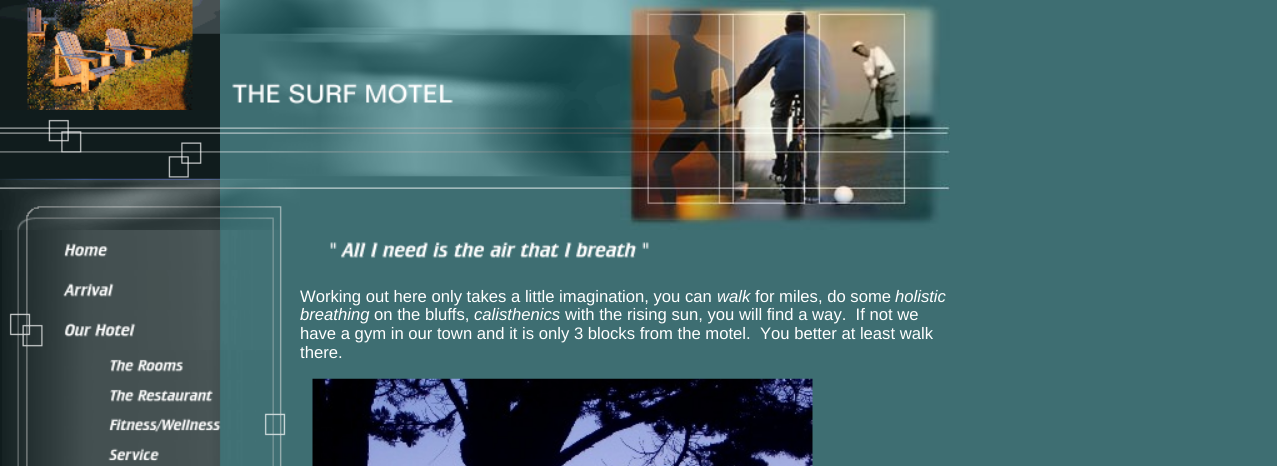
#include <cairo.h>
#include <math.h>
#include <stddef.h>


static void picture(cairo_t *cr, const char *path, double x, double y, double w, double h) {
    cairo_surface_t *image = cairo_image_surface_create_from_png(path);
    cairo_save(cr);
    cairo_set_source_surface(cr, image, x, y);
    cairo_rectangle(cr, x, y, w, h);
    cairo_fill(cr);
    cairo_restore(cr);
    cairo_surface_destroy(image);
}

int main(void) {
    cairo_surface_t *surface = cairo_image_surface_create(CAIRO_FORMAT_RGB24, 1277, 466);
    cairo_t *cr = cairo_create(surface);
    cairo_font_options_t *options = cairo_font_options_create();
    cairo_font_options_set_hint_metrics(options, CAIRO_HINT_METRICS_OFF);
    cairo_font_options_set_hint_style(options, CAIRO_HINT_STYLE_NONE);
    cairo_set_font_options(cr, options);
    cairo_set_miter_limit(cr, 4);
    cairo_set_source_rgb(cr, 0.243, 0.431, 0.447);
    cairo_paint(cr);
    picture(cr, "img1.png", 0, 230, 2, 236);
    picture(cr, "img2.png", 0, 0, 220, 110);
    picture(cr, "img3.png", 220, 0, 400, 80);
    picture(cr, "img4.png", 620, 0, 330, 230);
    picture(cr, "img5.png", 220, 80, 400, 30);
    picture(cr, "img6.png", 0, 110, 220, 70);
    picture(cr, "img7.png", 220, 110, 400, 70);
    picture(cr, "img8.png", 0, 180, 220, 50);
    picture(cr, "img9.png", 220, 180, 80, 50);
    picture(cr, "img10.png", 300, 187, 320, 2);
    picture(cr, "img11.png", 2, 230, 280, 40);
    picture(cr, "img12.png", 2, 270, 280, 40);
    picture(cr, "img13.png", 2, 310, 280, 40);
    picture(cr, "img14.png", 2, 350, 280, 30);
    picture(cr, "img15.png", 2, 380, 280, 30);
    picture(cr, "img16.png", 2, 410, 284, 30);
    picture(cr, "img17.png", 2, 440, 280, 26);
    picture(cr, "img18.png", 330, 242, 319, 16);
    cairo_select_font_face(cr, "Liberation Sans", CAIRO_FONT_SLANT_NORMAL, CAIRO_FONT_WEIGHT_NORMAL);
    cairo_set_font_size(cr, 16.65);
    cairo_set_source_rgb(cr, 1, 1, 1);
    cairo_move_to(cr, 300, 302);
    cairo_show_text(cr, "Working out here only takes a little imagination, you can");
    cairo_select_font_face(cr, "Liberation Sans", CAIRO_FONT_SLANT_ITALIC, CAIRO_FONT_WEIGHT_NORMAL);
    cairo_move_to(cr, 717, 302);
    cairo_show_text(cr, "walk");
    cairo_select_font_face(cr, "Liberation Sans", CAIRO_FONT_SLANT_NORMAL, CAIRO_FONT_WEIGHT_NORMAL);
    cairo_move_to(cr, 755, 302);
    cairo_show_text(cr, "for miles, do some");
    cairo_select_font_face(cr, "Liberation Sans", CAIRO_FONT_SLANT_ITALIC, CAIRO_FONT_WEIGHT_NORMAL);
    cairo_move_to(cr, 895, 302);
    cairo_show_text(cr, "holistic");
    cairo_move_to(cr, 300, 320);
    cairo_show_text(cr, "breathing");
    cairo_select_font_face(cr, "Liberation Sans", CAIRO_FONT_SLANT_NORMAL, CAIRO_FONT_WEIGHT_NORMAL);
    cairo_move_to(cr, 374, 320);
    cairo_show_text(cr, "on the bluffs,");
    cairo_select_font_face(cr, "Liberation Sans", CAIRO_FONT_SLANT_ITALIC, CAIRO_FONT_WEIGHT_NORMAL);
    cairo_move_to(cr, 474, 320);
    cairo_show_text(cr, "calisthenics");
    cairo_select_font_face(cr, "Liberation Sans", CAIRO_FONT_SLANT_NORMAL, CAIRO_FONT_WEIGHT_NORMAL);
    cairo_move_to(cr, 565, 320);
    cairo_show_text(cr, "with the rising sun, you will find a way.  If not we");
    cairo_move_to(cr, 300, 339);
    cairo_show_text(cr, "have a gym in our town and it is only 3 blocks from the motel.  You better at least walk");
    cairo_move_to(cr, 300, 358);
    cairo_show_text(cr, "there.");
    picture(cr, "img19.png", 312, 378, 501, 88);
    cairo_surface_write_to_png(surface, "page.png");
    cairo_font_options_destroy(options);
    cairo_destroy(cr);
    cairo_surface_destroy(surface);
    return 0;
}
